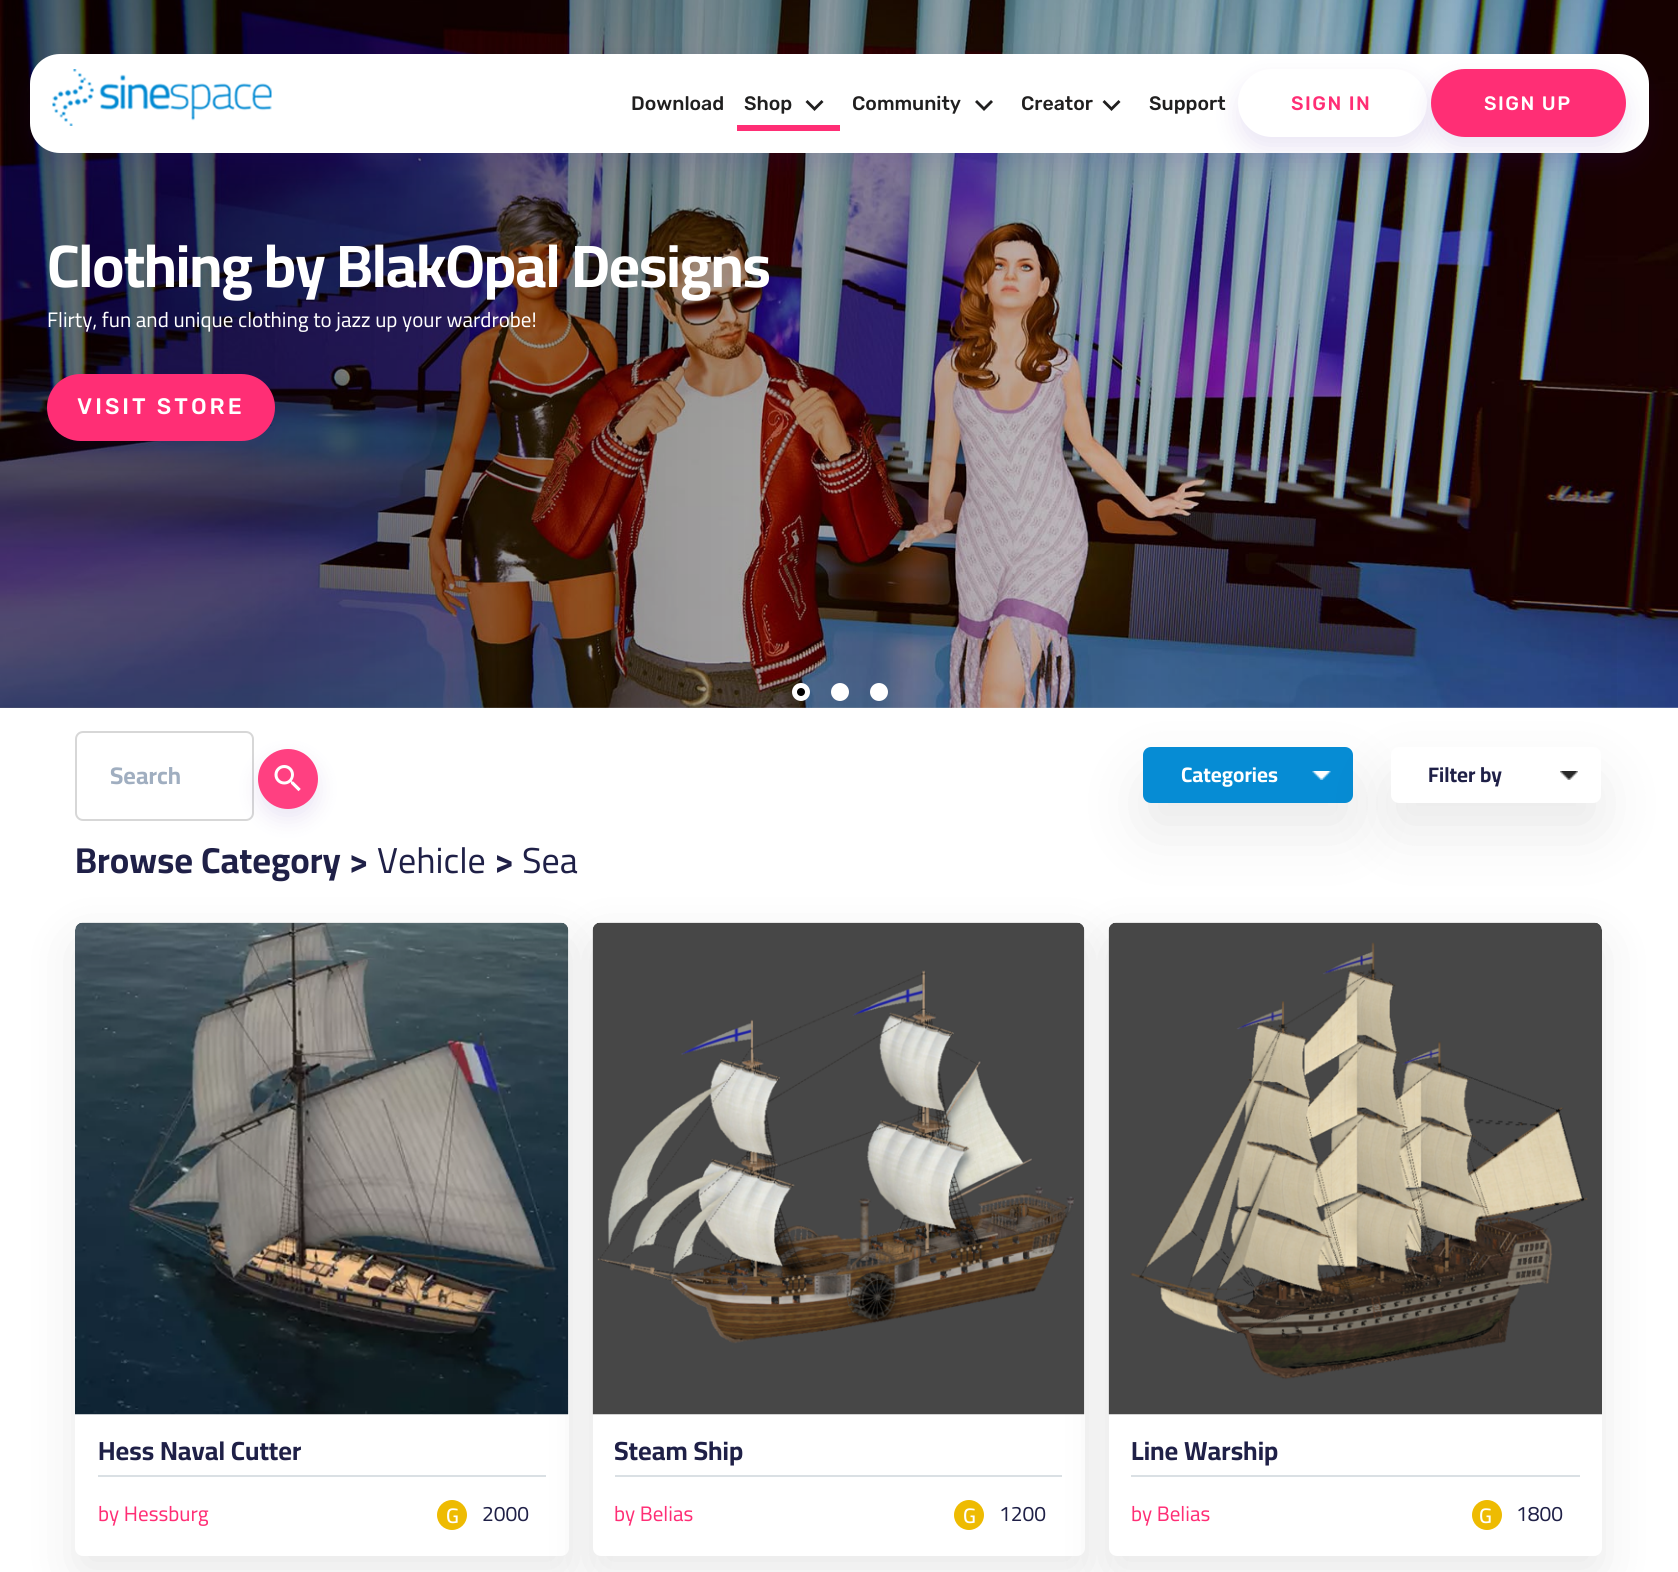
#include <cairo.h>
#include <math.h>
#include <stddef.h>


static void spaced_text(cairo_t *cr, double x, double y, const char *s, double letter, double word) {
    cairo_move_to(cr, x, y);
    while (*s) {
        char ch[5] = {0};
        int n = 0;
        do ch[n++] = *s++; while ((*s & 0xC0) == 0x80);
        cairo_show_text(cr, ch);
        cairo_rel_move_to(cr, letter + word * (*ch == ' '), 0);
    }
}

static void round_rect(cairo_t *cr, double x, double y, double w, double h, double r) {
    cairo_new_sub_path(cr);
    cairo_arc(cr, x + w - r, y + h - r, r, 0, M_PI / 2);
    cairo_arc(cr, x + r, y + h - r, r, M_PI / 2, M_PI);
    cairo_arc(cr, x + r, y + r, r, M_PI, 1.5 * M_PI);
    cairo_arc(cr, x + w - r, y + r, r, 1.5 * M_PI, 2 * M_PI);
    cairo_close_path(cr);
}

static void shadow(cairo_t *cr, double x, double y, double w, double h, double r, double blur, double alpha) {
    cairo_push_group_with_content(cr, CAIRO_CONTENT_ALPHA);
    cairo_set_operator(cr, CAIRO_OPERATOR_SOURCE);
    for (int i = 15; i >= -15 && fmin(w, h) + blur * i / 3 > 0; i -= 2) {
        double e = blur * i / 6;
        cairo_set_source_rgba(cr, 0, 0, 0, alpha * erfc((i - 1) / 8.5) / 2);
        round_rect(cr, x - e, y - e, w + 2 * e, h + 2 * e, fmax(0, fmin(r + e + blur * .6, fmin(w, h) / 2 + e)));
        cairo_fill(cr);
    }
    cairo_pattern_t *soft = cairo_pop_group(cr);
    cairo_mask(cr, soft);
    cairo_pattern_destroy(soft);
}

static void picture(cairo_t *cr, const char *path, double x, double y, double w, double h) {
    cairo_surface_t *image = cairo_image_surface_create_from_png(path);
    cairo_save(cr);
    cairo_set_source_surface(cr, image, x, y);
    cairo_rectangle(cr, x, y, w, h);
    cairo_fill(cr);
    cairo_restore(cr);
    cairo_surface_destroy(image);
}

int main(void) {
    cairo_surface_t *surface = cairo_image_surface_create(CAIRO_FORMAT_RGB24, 1678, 1572);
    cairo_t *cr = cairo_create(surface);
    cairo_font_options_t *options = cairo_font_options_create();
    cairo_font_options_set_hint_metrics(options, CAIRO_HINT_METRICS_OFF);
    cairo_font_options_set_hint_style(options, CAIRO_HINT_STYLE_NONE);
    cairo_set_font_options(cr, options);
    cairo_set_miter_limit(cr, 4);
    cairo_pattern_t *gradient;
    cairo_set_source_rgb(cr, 1, 1, 1);
    cairo_paint(cr);
    picture(cr, "img2.png", 0, 0, 1678, 708);
    gradient = cairo_pattern_create_linear(0, 354, 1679, 354);
    cairo_pattern_add_color_stop_rgba(gradient, 0.15, 0, 0, 0, 0.5);
    cairo_pattern_add_color_stop_rgba(gradient, 1, 0, 0, 0, 0);
    cairo_set_source(cr, gradient);
    cairo_pattern_destroy(gradient);
    cairo_rectangle(cr, 0, 0, 1617, 708);
    cairo_fill(cr);
    cairo_set_source_rgb(cr, 0.216, 0.031, 0.596);
    shadow(cr, 30, 66, 1619, 99, 30, 12, 0.1);
    cairo_set_source_rgb(cr, 1, 1, 1);
    round_rect(cr, 30, 54, 1619, 99, 30);
    cairo_fill(cr);
    picture(cr, "img1.png", 52, 69, 220, 57);
    cairo_select_font_face(cr, "Rubik Light", CAIRO_FONT_SLANT_NORMAL, CAIRO_FONT_WEIGHT_NORMAL);
    cairo_set_font_size(cr, 19.5);
    cairo_set_source_rgb(cr, 0.125, 0.122, 0.122);
    cairo_move_to(cr, 631, 110);
    cairo_show_text(cr, "Download");
    cairo_move_to(cr, 744, 110);
    cairo_show_text(cr, "Shop");
    cairo_new_path(cr);
    cairo_move_to(cr, 821.5, 100);
    cairo_line_to(cr, 823.5, 102);
    cairo_line_to(cr, 814.5, 111);
    cairo_line_to(cr, 805.5, 102);
    cairo_line_to(cr, 807.5, 100);
    cairo_line_to(cr, 814.5, 107);
    cairo_close_path(cr);
    cairo_fill(cr);
    cairo_set_source_rgb(cr, 1, 0.18, 0.459);
    cairo_rectangle(cr, 737, 125, 103, 6);
    cairo_fill(cr);
    cairo_set_source_rgb(cr, 0.125, 0.122, 0.122);
    cairo_move_to(cr, 852, 110);
    cairo_show_text(cr, "Community");
    cairo_new_path(cr);
    cairo_move_to(cr, 991, 100);
    cairo_line_to(cr, 993, 102);
    cairo_line_to(cr, 984, 111);
    cairo_line_to(cr, 975, 102);
    cairo_line_to(cr, 977, 100);
    cairo_line_to(cr, 984, 107);
    cairo_close_path(cr);
    cairo_fill(cr);
    cairo_move_to(cr, 1021, 110);
    cairo_show_text(cr, "Creator");
    cairo_new_path(cr);
    cairo_move_to(cr, 1118.5, 100);
    cairo_line_to(cr, 1120.5, 102);
    cairo_line_to(cr, 1111.5, 111);
    cairo_line_to(cr, 1102.5, 102);
    cairo_line_to(cr, 1104.5, 100);
    cairo_line_to(cr, 1111.5, 107);
    cairo_close_path(cr);
    cairo_fill(cr);
    cairo_move_to(cr, 1149, 110);
    cairo_show_text(cr, "Support");
    cairo_set_source_rgb(cr, 0.216, 0.031, 0.596);
    shadow(cr, 1238, 81, 189, 68, 34, 12, 0.1);
    cairo_set_source_rgb(cr, 1, 1, 1);
    round_rect(cr, 1238, 69, 189, 68, 34);
    cairo_fill(cr);
    cairo_set_source_rgb(cr, 1, 0.18, 0.459);
    spaced_text(cr, 1291, 110, "SIGN IN", 1.5, 0);
    cairo_set_source_rgb(cr, 0.216, 0.031, 0.596);
    shadow(cr, 1431, 81, 195, 68, 34, 12, 0.1);
    cairo_set_source_rgb(cr, 1, 0.18, 0.459);
    round_rect(cr, 1431, 69, 195, 68, 34);
    cairo_fill(cr);
    cairo_set_source_rgb(cr, 1, 1, 1);
    spaced_text(cr, 1484, 110, "SIGN UP", 1.5, 0);
    cairo_select_font_face(cr, "Cairo", CAIRO_FONT_SLANT_NORMAL, CAIRO_FONT_WEIGHT_BOLD);
    cairo_set_font_size(cr, 60);
    spaced_text(cr, 47, 287, "Clothing by BlakOpal Designs", -1.2, 0);
    cairo_select_font_face(cr, "Cairo", CAIRO_FONT_SLANT_NORMAL, CAIRO_FONT_WEIGHT_NORMAL);
    cairo_set_font_size(cr, 21);
    cairo_move_to(cr, 47, 327);
    cairo_show_text(cr, "Flirty, fun and unique clothing to jazz up your wardrobe!");
    cairo_set_source_rgb(cr, 0.216, 0.031, 0.596);
    shadow(cr, 47, 386, 228, 67, 33.5, 12, 0.1);
    cairo_set_source_rgb(cr, 1, 0.18, 0.459);
    round_rect(cr, 47, 374, 228, 67, 33.5);
    cairo_fill(cr);
    cairo_select_font_face(cr, "Rubik Light", CAIRO_FONT_SLANT_NORMAL, CAIRO_FONT_WEIGHT_NORMAL);
    cairo_set_font_size(cr, 22.5);
    cairo_set_source_rgb(cr, 1, 1, 1);
    spaced_text(cr, 77, 414, "VISIT STORE", 3, 0);
    cairo_set_source_rgb(cr, 0, 0, 0);
    cairo_new_path(cr);
    cairo_arc(cr, 801, 692, 6.5, 0, 2 * M_PI);
    cairo_fill_preserve(cr);
    cairo_set_source_rgb(cr, 1, 1, 1);
    cairo_set_line_width(cr, 5);
    cairo_stroke(cr);
    cairo_arc(cr, 840, 692, 9, 0, 2 * M_PI);
    cairo_fill(cr);
    cairo_arc(cr, 879, 692, 9, 0, 2 * M_PI);
    cairo_fill(cr);
    round_rect(cr, 76, 732, 177, 88, 7);
    cairo_set_source_rgb(cr, 0.843, 0.843, 0.843);
    cairo_set_line_width(cr, 2);
    cairo_stroke(cr);
    cairo_select_font_face(cr, "Cairo", CAIRO_FONT_SLANT_NORMAL, CAIRO_FONT_WEIGHT_BOLD);
    cairo_set_font_size(cr, 24);
    cairo_set_source_rgb(cr, 0.627, 0.682, 0.753);
    cairo_move_to(cr, 110, 784);
    cairo_show_text(cr, "Search");
    cairo_set_source_rgb(cr, 0.216, 0.031, 0.596);
    shadow(cr, 258, 759, 60, 60, 30, 10.5, 0.1);
    cairo_set_source_rgb(cr, 1, 0.251, 0.506);
    cairo_arc(cr, 288, 779, 30, 0, 2 * M_PI);
    cairo_fill(cr);
    picture(cr, "img3.png", 274, 765, 27, 27);
    cairo_set_source_rgb(cr, 0.137, 0.137, 0.137);
    shadow(cr, 1143, 776, 210, 55, 8, 30, 0.1);
    cairo_set_source_rgb(cr, 0.027, 0.549, 0.831);
    round_rect(cr, 1143, 747, 210, 56, 8);
    cairo_fill(cr);
    picture(cr, "img4.png", 1312, 771, 19, 9);
    cairo_set_font_size(cr, 21);
    cairo_set_source_rgb(cr, 1, 1, 1);
    cairo_move_to(cr, 1181, 782);
    cairo_show_text(cr, "Categories");
    cairo_set_source_rgb(cr, 0.137, 0.137, 0.137);
    shadow(cr, 1391, 776, 210, 55, 8, 30, 0.1);
    cairo_set_source_rgb(cr, 1, 1, 1);
    round_rect(cr, 1391, 747, 210, 56, 8);
    cairo_fill(cr);
    picture(cr, "img5.png", 1560, 771, 18, 9);
    cairo_set_source_rgb(cr, 0.122, 0.125, 0.278);
    cairo_move_to(cr, 1428, 782);
    cairo_show_text(cr, "Filter by");
    cairo_set_source_rgb(cr, 0.102, 0.102, 0.102);
    shadow(cr, 75, 941, 494, 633, 8, 24, 0.1);
    cairo_set_font_size(cr, 36);
    cairo_set_source_rgb(cr, 0.122, 0.125, 0.278);
    cairo_move_to(cr, 75, 873);
    cairo_show_text(cr, "Browse Category >");
    cairo_select_font_face(cr, "Cairo", CAIRO_FONT_SLANT_NORMAL, CAIRO_FONT_WEIGHT_NORMAL);
    cairo_move_to(cr, 377, 873);
    cairo_show_text(cr, "Vehicle");
    cairo_select_font_face(cr, "Cairo", CAIRO_FONT_SLANT_NORMAL, CAIRO_FONT_WEIGHT_BOLD);
    cairo_move_to(cr, 494, 873);
    cairo_show_text(cr, ">");
    cairo_set_source_rgb(cr, 1, 1, 1);
    round_rect(cr, 75, 923, 494, 633, 8);
    cairo_fill(cr);
    cairo_set_source_rgb(cr, 0.855, 0.878, 0.894);
    cairo_rectangle(cr, 98, 1475, 448, 2);
    cairo_fill(cr);
    cairo_set_source_rgb(cr, 0.102, 0.102, 0.102);
    shadow(cr, 593, 941, 492, 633, 8, 24, 0.1);
    cairo_select_font_face(cr, "Cairo", CAIRO_FONT_SLANT_NORMAL, CAIRO_FONT_WEIGHT_NORMAL);
    cairo_set_source_rgb(cr, 0.122, 0.125, 0.278);
    cairo_move_to(cr, 522, 873);
    cairo_show_text(cr, "Sea");
    picture(cr, "img6.png", 75, 922, 494, 493);
    cairo_select_font_face(cr, "Cairo", CAIRO_FONT_SLANT_NORMAL, CAIRO_FONT_WEIGHT_BOLD);
    cairo_set_font_size(cr, 26.25);
    cairo_move_to(cr, 98, 1460);
    cairo_show_text(cr, "Hess Naval Cutter");
    cairo_select_font_face(cr, "Cairo", CAIRO_FONT_SLANT_NORMAL, CAIRO_FONT_WEIGHT_NORMAL);
    cairo_set_font_size(cr, 21);
    cairo_set_source_rgb(cr, 1, 0.18, 0.459);
    cairo_move_to(cr, 98, 1521);
    cairo_show_text(cr, "by Hessburg");
    cairo_set_source_rgb(cr, 0.933, 0.733, 0.008);
    cairo_new_path(cr);
    cairo_arc(cr, 452, 1515, 15, 0, 2 * M_PI);
    cairo_fill(cr);
    cairo_select_font_face(cr, "Cairo SemiBold", CAIRO_FONT_SLANT_NORMAL, CAIRO_FONT_WEIGHT_NORMAL);
    cairo_set_source_rgb(cr, 1, 1, 1);
    cairo_move_to(cr, 446, 1523);
    cairo_show_text(cr, "G");
    cairo_select_font_face(cr, "Cairo", CAIRO_FONT_SLANT_NORMAL, CAIRO_FONT_WEIGHT_NORMAL);
    cairo_set_source_rgb(cr, 0.122, 0.125, 0.278);
    cairo_move_to(cr, 482, 1521);
    cairo_show_text(cr, "2000");
    cairo_set_source_rgb(cr, 1, 1, 1);
    round_rect(cr, 593, 923, 492, 633, 8);
    cairo_fill(cr);
    cairo_set_source_rgb(cr, 0.855, 0.878, 0.894);
    cairo_rectangle(cr, 615, 1475, 447, 2);
    cairo_fill(cr);
    cairo_set_source_rgb(cr, 0.102, 0.102, 0.102);
    shadow(cr, 1109, 941, 493, 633, 8, 24, 0.1);
    picture(cr, "img7.png", 592, 922, 493, 493);
    cairo_select_font_face(cr, "Cairo", CAIRO_FONT_SLANT_NORMAL, CAIRO_FONT_WEIGHT_BOLD);
    cairo_set_font_size(cr, 26.25);
    cairo_set_source_rgb(cr, 0.122, 0.125, 0.278);
    cairo_move_to(cr, 614, 1460);
    cairo_show_text(cr, "Steam Ship");
    cairo_select_font_face(cr, "Cairo", CAIRO_FONT_SLANT_NORMAL, CAIRO_FONT_WEIGHT_NORMAL);
    cairo_set_font_size(cr, 21);
    cairo_set_source_rgb(cr, 1, 0.18, 0.459);
    cairo_move_to(cr, 614, 1521);
    cairo_show_text(cr, "by Belias");
    cairo_set_source_rgb(cr, 0.933, 0.733, 0.008);
    cairo_new_path(cr);
    cairo_arc(cr, 969, 1515, 15, 0, 2 * M_PI);
    cairo_fill(cr);
    cairo_select_font_face(cr, "Cairo SemiBold", CAIRO_FONT_SLANT_NORMAL, CAIRO_FONT_WEIGHT_NORMAL);
    cairo_set_source_rgb(cr, 1, 1, 1);
    cairo_move_to(cr, 963, 1523);
    cairo_show_text(cr, "G");
    cairo_select_font_face(cr, "Cairo", CAIRO_FONT_SLANT_NORMAL, CAIRO_FONT_WEIGHT_NORMAL);
    cairo_set_source_rgb(cr, 0.122, 0.125, 0.278);
    cairo_move_to(cr, 999, 1521);
    cairo_show_text(cr, "1200");
    cairo_set_source_rgb(cr, 1, 1, 1);
    round_rect(cr, 1109, 923, 493, 633, 8);
    cairo_fill(cr);
    picture(cr, "img8.png", 1108, 922, 494, 493);
    cairo_set_source_rgb(cr, 0.855, 0.878, 0.894);
    cairo_rectangle(cr, 1131, 1475, 449, 2);
    cairo_fill(cr);
    cairo_select_font_face(cr, "Cairo", CAIRO_FONT_SLANT_NORMAL, CAIRO_FONT_WEIGHT_BOLD);
    cairo_set_font_size(cr, 26.25);
    cairo_set_source_rgb(cr, 0.122, 0.125, 0.278);
    cairo_move_to(cr, 1131, 1460);
    cairo_show_text(cr, "Line Warship");
    cairo_select_font_face(cr, "Cairo", CAIRO_FONT_SLANT_NORMAL, CAIRO_FONT_WEIGHT_NORMAL);
    cairo_set_font_size(cr, 21);
    cairo_set_source_rgb(cr, 1, 0.18, 0.459);
    cairo_move_to(cr, 1131, 1521);
    cairo_show_text(cr, "by Belias");
    cairo_set_source_rgb(cr, 0.933, 0.733, 0.008);
    cairo_new_path(cr);
    cairo_arc(cr, 1487, 1515, 15, 0, 2 * M_PI);
    cairo_fill(cr);
    cairo_select_font_face(cr, "Cairo SemiBold", CAIRO_FONT_SLANT_NORMAL, CAIRO_FONT_WEIGHT_NORMAL);
    cairo_set_source_rgb(cr, 1, 1, 1);
    cairo_move_to(cr, 1479, 1523);
    cairo_show_text(cr, "G");
    cairo_select_font_face(cr, "Cairo", CAIRO_FONT_SLANT_NORMAL, CAIRO_FONT_WEIGHT_NORMAL);
    cairo_set_source_rgb(cr, 0.122, 0.125, 0.278);
    cairo_move_to(cr, 1516, 1521);
    cairo_show_text(cr, "1800");
    cairo_surface_write_to_png(surface, "page.png");
    cairo_font_options_destroy(options);
    cairo_destroy(cr);
    cairo_surface_destroy(surface);
    return 0;
}
